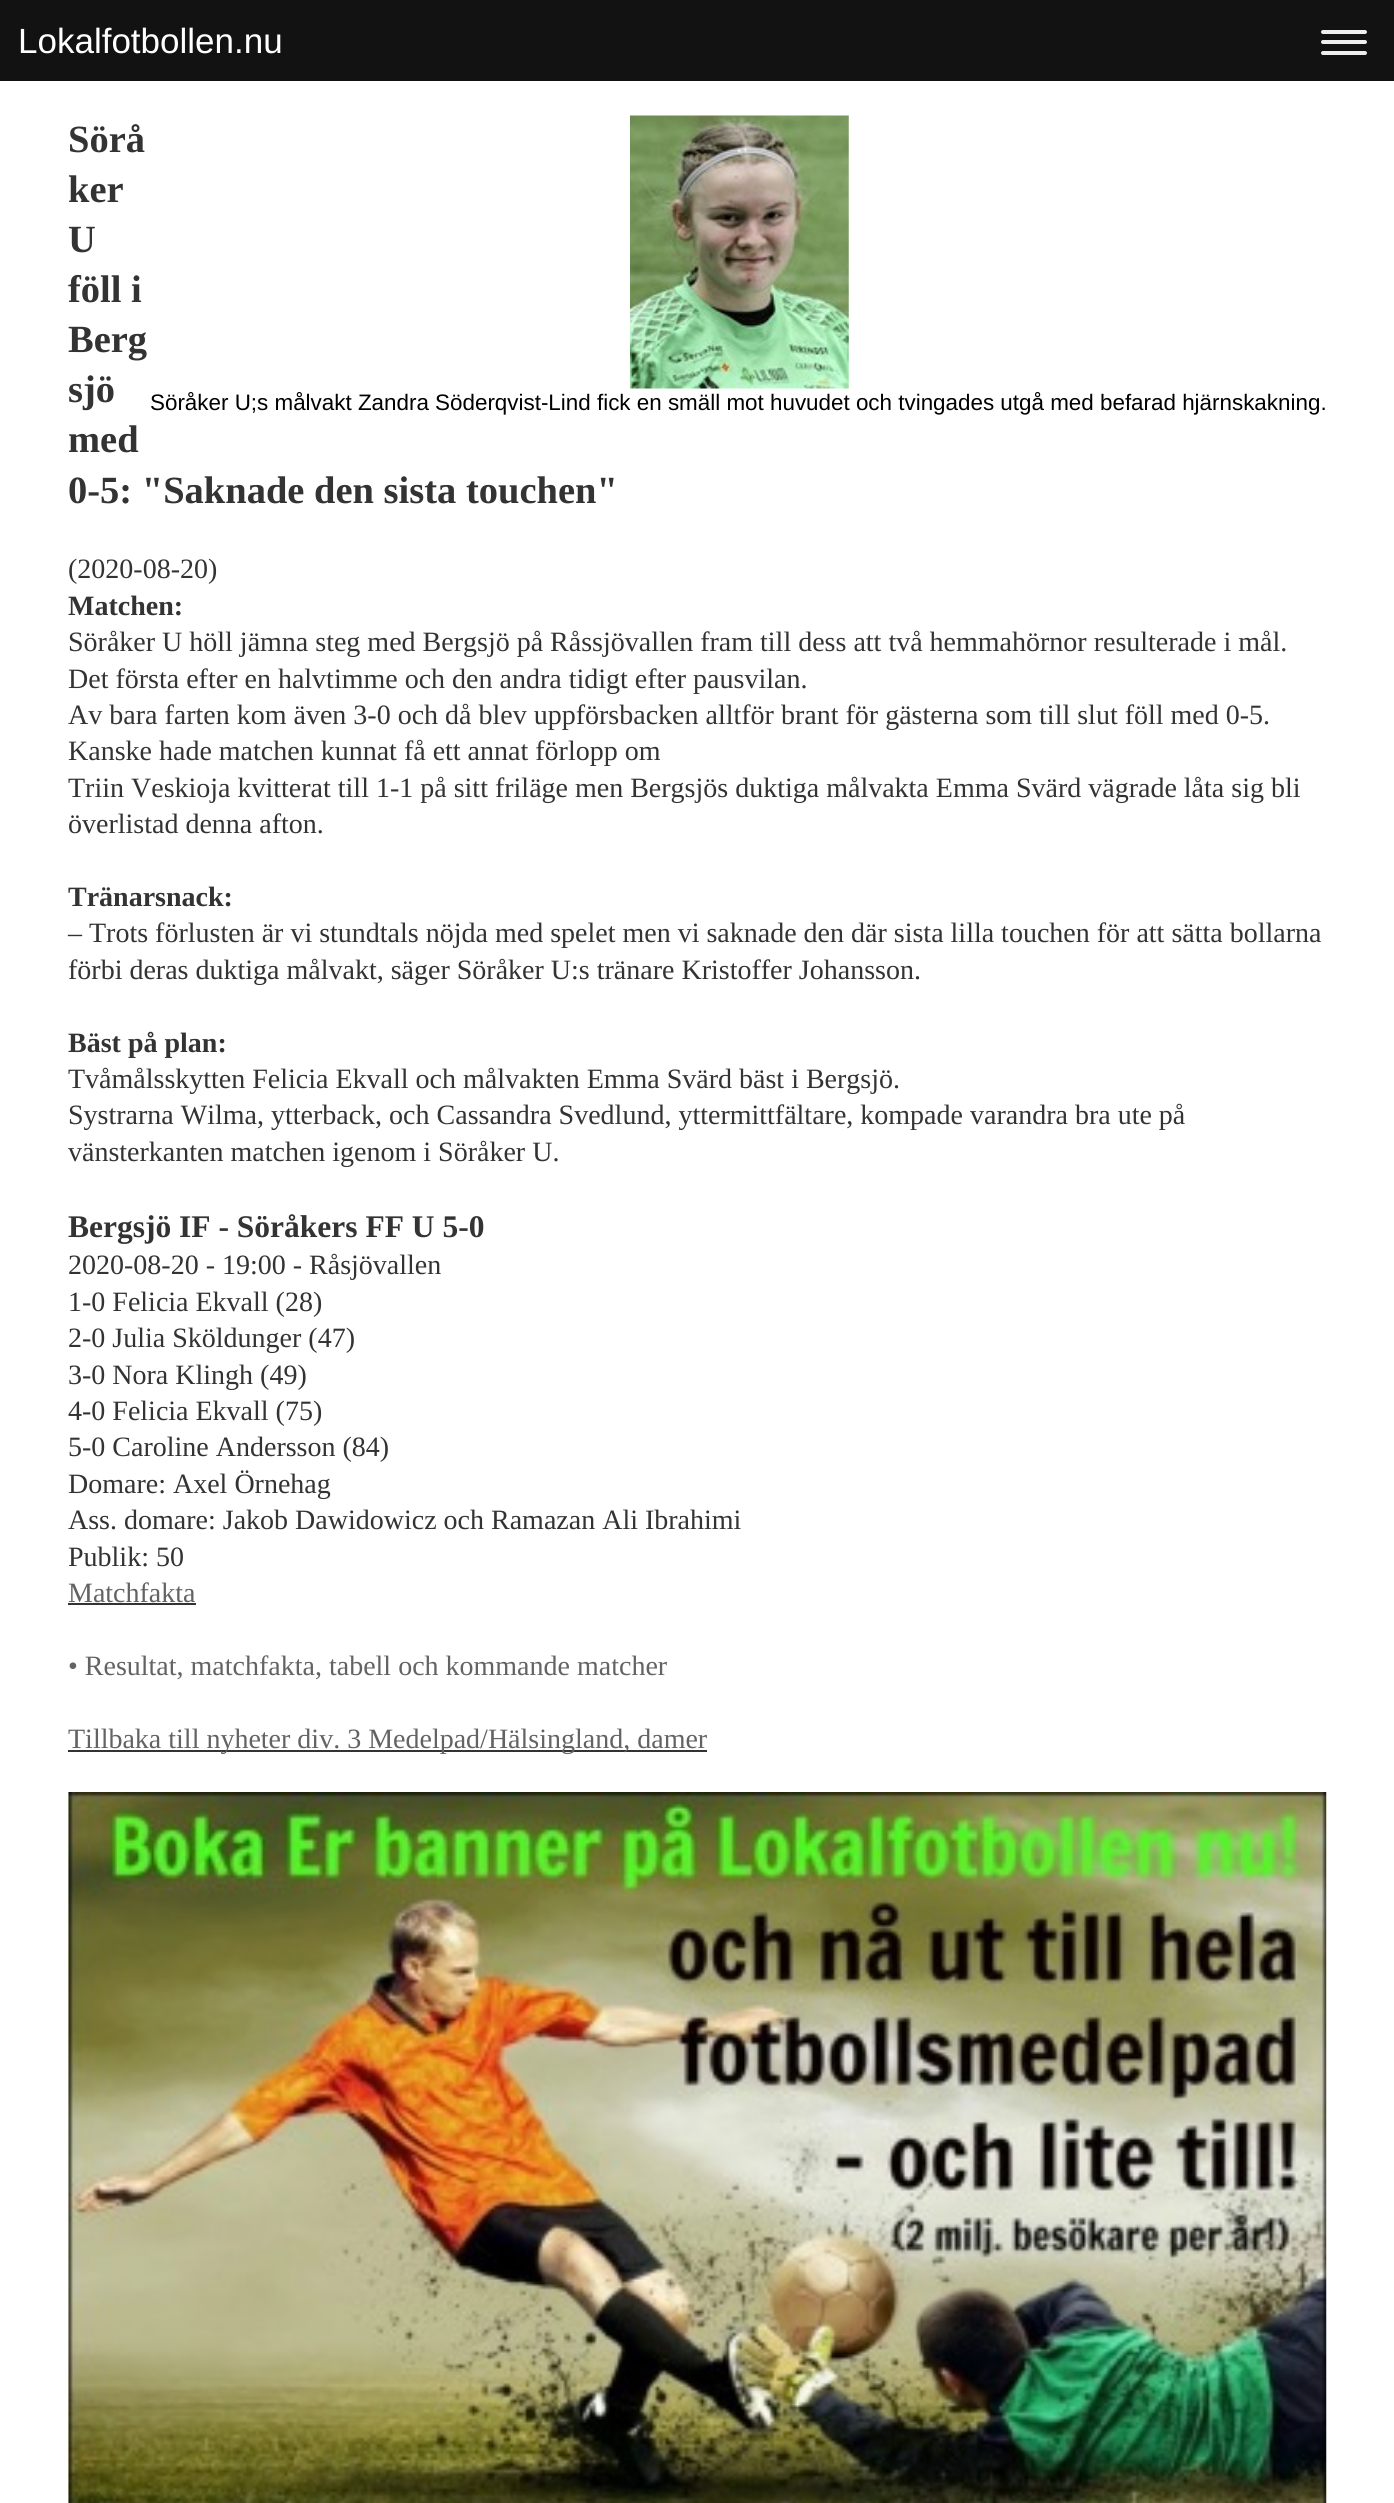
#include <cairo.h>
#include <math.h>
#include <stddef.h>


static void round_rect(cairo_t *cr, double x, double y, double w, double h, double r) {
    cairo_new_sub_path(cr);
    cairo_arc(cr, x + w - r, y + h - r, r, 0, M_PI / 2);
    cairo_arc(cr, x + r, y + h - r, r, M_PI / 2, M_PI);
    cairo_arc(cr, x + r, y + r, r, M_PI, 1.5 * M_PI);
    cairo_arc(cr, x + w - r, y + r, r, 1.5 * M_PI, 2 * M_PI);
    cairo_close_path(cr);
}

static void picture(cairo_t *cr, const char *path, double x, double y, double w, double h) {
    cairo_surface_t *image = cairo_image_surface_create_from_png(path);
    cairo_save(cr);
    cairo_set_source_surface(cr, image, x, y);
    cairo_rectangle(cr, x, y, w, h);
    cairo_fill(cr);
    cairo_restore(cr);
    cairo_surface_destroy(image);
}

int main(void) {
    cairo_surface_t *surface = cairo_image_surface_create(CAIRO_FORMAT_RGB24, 1394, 2503);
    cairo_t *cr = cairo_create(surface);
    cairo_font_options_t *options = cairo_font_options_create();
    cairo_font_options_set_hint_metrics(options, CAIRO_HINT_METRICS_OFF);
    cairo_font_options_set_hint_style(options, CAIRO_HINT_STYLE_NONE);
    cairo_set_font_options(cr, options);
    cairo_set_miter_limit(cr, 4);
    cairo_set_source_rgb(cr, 1, 1, 1);
    cairo_paint(cr);
    cairo_set_source_rgb(cr, 0.071, 0.071, 0.071);
    cairo_rectangle(cr, 0, 0, 1394, 81);
    cairo_fill(cr);
    cairo_select_font_face(cr, "Liberation Sans", CAIRO_FONT_SLANT_NORMAL, CAIRO_FONT_WEIGHT_NORMAL);
    cairo_set_font_size(cr, 35);
    cairo_set_source_rgb(cr, 1, 1, 1);
    cairo_move_to(cr, 18, 53);
    cairo_show_text(cr, "Lokalfotbollen.nu");
    cairo_set_source_rgb(cr, 0.933, 0.933, 0.933);
    round_rect(cr, 1321, 30, 46, 4, 2);
    cairo_fill(cr);
    round_rect(cr, 1321, 40, 46, 4, 2);
    cairo_fill(cr);
    round_rect(cr, 1321, 51, 46, 4, 2);
    cairo_fill(cr);
    cairo_select_font_face(cr, "Liberation Serif", CAIRO_FONT_SLANT_NORMAL, CAIRO_FONT_WEIGHT_BOLD);
    cairo_set_font_size(cr, 38.5);
    cairo_set_source_rgb(cr, 0.2, 0.2, 0.2);
    cairo_move_to(cr, 68, 152);
    cairo_show_text(cr, "Sörå");
    cairo_move_to(cr, 68, 202);
    cairo_show_text(cr, "ker");
    cairo_move_to(cr, 68, 252);
    cairo_show_text(cr, "U");
    cairo_move_to(cr, 68, 302);
    cairo_show_text(cr, "föll i");
    cairo_move_to(cr, 68, 352);
    cairo_show_text(cr, "Berg");
    cairo_move_to(cr, 68, 402);
    cairo_show_text(cr, "sjö");
    cairo_move_to(cr, 68, 452);
    cairo_show_text(cr, "med");
    cairo_move_to(cr, 68, 503);
    cairo_show_text(cr, "0-5: \"Saknade den sista touchen\"");
    cairo_select_font_face(cr, "Liberation Serif", CAIRO_FONT_SLANT_NORMAL, CAIRO_FONT_WEIGHT_NORMAL);
    cairo_set_font_size(cr, 28);
    cairo_move_to(cr, 68, 578);
    cairo_show_text(cr, "(2020-08-20)");
    cairo_select_font_face(cr, "Liberation Serif", CAIRO_FONT_SLANT_NORMAL, CAIRO_FONT_WEIGHT_BOLD);
    cairo_move_to(cr, 68, 615);
    cairo_show_text(cr, "Matchen:");
    cairo_select_font_face(cr, "Liberation Serif", CAIRO_FONT_SLANT_NORMAL, CAIRO_FONT_WEIGHT_NORMAL);
    cairo_move_to(cr, 68, 651);
    cairo_show_text(cr, "Söråker U höll jämna steg med Bergsjö på Råssjövallen fram till dess att två hemmahörnor resulterade i mål.");
    cairo_move_to(cr, 68, 688);
    cairo_show_text(cr, "Det första efter en halvtimme och den andra tidigt efter pausvilan.");
    cairo_move_to(cr, 68, 724);
    cairo_show_text(cr, "Av bara farten kom även 3-0 och då blev uppförsbacken alltför brant för gästerna som till slut föll med 0-5.");
    cairo_move_to(cr, 68, 760);
    cairo_show_text(cr, "Kanske hade matchen kunnat få ett annat förlopp om");
    cairo_move_to(cr, 68, 797);
    cairo_show_text(cr, "Triin Veskioja kvitterat till 1-1 på sitt friläge men Bergsjös duktiga målvakta Emma Svärd vägrade låta sig bli");
    cairo_move_to(cr, 68, 833);
    cairo_show_text(cr, "överlistad denna afton.");
    cairo_select_font_face(cr, "Liberation Serif", CAIRO_FONT_SLANT_NORMAL, CAIRO_FONT_WEIGHT_BOLD);
    cairo_move_to(cr, 68, 906);
    cairo_show_text(cr, "Tränarsnack:");
    cairo_select_font_face(cr, "Liberation Serif", CAIRO_FONT_SLANT_NORMAL, CAIRO_FONT_WEIGHT_NORMAL);
    cairo_move_to(cr, 68, 942);
    cairo_show_text(cr, "– Trots förlusten är vi stundtals nöjda med spelet men vi saknade den där sista lilla touchen för att sätta bollarna");
    cairo_move_to(cr, 68, 979);
    cairo_show_text(cr, "förbi deras duktiga målvakt, säger Söråker U:s tränare Kristoffer Johansson.");
    cairo_select_font_face(cr, "Liberation Serif", CAIRO_FONT_SLANT_NORMAL, CAIRO_FONT_WEIGHT_BOLD);
    cairo_move_to(cr, 68, 1052);
    cairo_show_text(cr, "Bäst på plan:");
    cairo_select_font_face(cr, "Liberation Serif", CAIRO_FONT_SLANT_NORMAL, CAIRO_FONT_WEIGHT_NORMAL);
    cairo_move_to(cr, 68, 1088);
    cairo_show_text(cr, "Tvåmålsskytten Felicia Ekvall och målvakten Emma Svärd bäst i Bergsjö.");
    cairo_move_to(cr, 68, 1124);
    cairo_show_text(cr, "Systrarna Wilma, ytterback, och Cassandra Svedlund, yttermittfältare, kompade varandra bra ute på");
    cairo_move_to(cr, 68, 1161);
    cairo_show_text(cr, "vänsterkanten matchen igenom i Söråker U.");
    cairo_select_font_face(cr, "Liberation Serif", CAIRO_FONT_SLANT_NORMAL, CAIRO_FONT_WEIGHT_BOLD);
    cairo_set_font_size(cr, 31.5);
    cairo_move_to(cr, 68, 1237);
    cairo_show_text(cr, "Bergsjö IF - Söråkers FF U 5-0");
    cairo_select_font_face(cr, "Liberation Serif", CAIRO_FONT_SLANT_NORMAL, CAIRO_FONT_WEIGHT_NORMAL);
    cairo_set_font_size(cr, 28);
    cairo_move_to(cr, 68, 1274);
    cairo_show_text(cr, "2020-08-20 - 19:00 - Råsjövallen");
    cairo_move_to(cr, 68, 1311);
    cairo_show_text(cr, "1-0 Felicia Ekvall (28)");
    cairo_move_to(cr, 68, 1347);
    cairo_show_text(cr, "2-0 Julia Sköldunger (47)");
    cairo_move_to(cr, 68, 1384);
    cairo_show_text(cr, "3-0 Nora Klingh (49)");
    cairo_move_to(cr, 68, 1420);
    cairo_show_text(cr, "4-0 Felicia Ekvall (75)");
    cairo_move_to(cr, 68, 1456);
    cairo_show_text(cr, "5-0 Caroline Andersson (84)");
    cairo_move_to(cr, 68, 1493);
    cairo_show_text(cr, "Domare: Axel Örnehag");
    cairo_move_to(cr, 68, 1529);
    cairo_show_text(cr, "Ass. domare: Jakob Dawidowicz och Ramazan Ali Ibrahimi");
    cairo_move_to(cr, 68, 1566);
    cairo_show_text(cr, "Publik: 50");
    cairo_set_source_rgb(cr, 0.388, 0.388, 0.388);
    cairo_move_to(cr, 68, 1602);
    cairo_show_text(cr, "Matchfakta");
    cairo_set_source_rgb(cr, 0.2, 0.2, 0.2);
    cairo_rectangle(cr, 68, 1603, 128, 2);
    cairo_fill(cr);
    cairo_set_source_rgb(cr, 0.388, 0.388, 0.388);
    cairo_move_to(cr, 68, 1675);
    cairo_show_text(cr, "• Resultat, matchfakta, tabell och kommande matcher");
    cairo_set_source_rgb(cr, 0.2, 0.2, 0.2);
    cairo_rectangle(cr, 68, 1750, 639, 2);
    cairo_fill(cr);
    cairo_set_source_rgb(cr, 0.388, 0.388, 0.388);
    cairo_move_to(cr, 68, 1748);
    cairo_show_text(cr, "Tillbaka till nyheter div. 3 Medelpad/Hälsingland, damer");
    picture(cr, "img1.png", 630, 115, 219, 274);
    cairo_select_font_face(cr, "Liberation Sans", CAIRO_FONT_SLANT_NORMAL, CAIRO_FONT_WEIGHT_NORMAL);
    cairo_set_font_size(cr, 22.4);
    cairo_set_source_rgb(cr, 0, 0, 0);
    cairo_move_to(cr, 150, 410);
    cairo_show_text(cr, "Söråker U;s målvakt Zandra Söderqvist-Lind fick en smäll mot huvudet och tvingades utgå med befarad hjärnskakning.");
    picture(cr, "img2.png", 68, 1792, 1259, 711);
    cairo_surface_write_to_png(surface, "page.png");
    cairo_font_options_destroy(options);
    cairo_destroy(cr);
    cairo_surface_destroy(surface);
    return 0;
}
